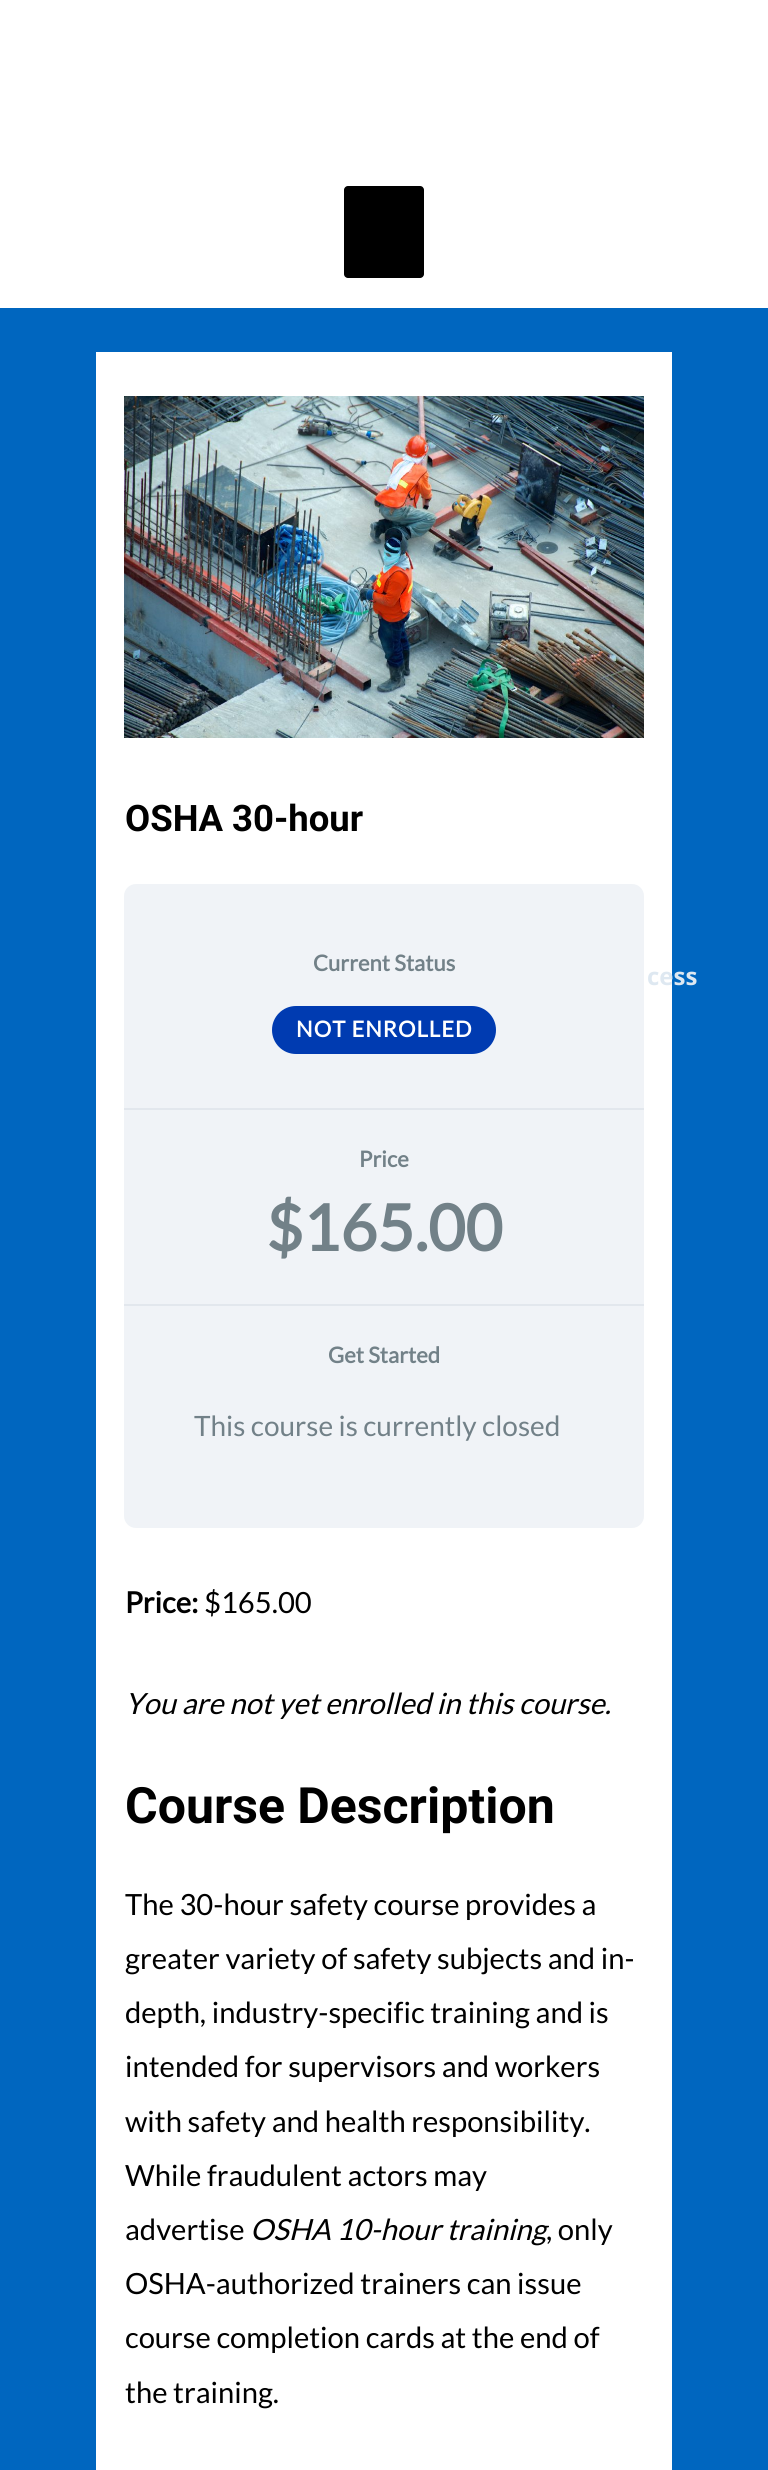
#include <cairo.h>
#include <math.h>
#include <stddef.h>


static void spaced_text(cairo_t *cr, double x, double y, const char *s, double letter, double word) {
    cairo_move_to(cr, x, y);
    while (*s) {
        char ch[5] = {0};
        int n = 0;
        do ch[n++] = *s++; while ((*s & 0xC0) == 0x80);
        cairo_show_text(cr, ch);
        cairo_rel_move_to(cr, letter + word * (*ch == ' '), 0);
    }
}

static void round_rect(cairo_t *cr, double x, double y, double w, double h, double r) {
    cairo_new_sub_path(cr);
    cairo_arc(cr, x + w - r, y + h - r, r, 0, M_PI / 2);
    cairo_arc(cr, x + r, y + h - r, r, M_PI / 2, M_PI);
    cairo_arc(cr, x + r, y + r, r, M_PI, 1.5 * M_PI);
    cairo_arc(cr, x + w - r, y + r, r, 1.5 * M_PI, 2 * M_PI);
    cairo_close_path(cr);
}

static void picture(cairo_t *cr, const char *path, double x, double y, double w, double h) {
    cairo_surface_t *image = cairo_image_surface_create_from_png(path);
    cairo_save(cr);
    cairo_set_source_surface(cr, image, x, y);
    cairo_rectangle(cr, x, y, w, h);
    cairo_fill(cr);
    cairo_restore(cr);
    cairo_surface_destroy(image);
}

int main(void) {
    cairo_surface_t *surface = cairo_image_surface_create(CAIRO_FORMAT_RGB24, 768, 2470);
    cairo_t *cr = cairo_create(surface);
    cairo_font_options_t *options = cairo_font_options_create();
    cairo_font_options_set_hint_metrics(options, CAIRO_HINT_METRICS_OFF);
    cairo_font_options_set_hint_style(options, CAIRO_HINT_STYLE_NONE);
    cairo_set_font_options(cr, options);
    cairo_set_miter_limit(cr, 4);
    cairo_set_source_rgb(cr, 0, 0.4, 0.749);
    cairo_paint(cr);
    cairo_set_source_rgb(cr, 1, 1, 1);
    cairo_rectangle(cr, 0, 0, 768, 308);
    cairo_fill(cr);
    cairo_set_source_rgb(cr, 0, 0, 0);
    round_rect(cr, 344, 186, 80, 92, 4);
    cairo_fill(cr);
    cairo_set_source_rgb(cr, 1, 1, 1);
    cairo_rectangle(cr, 96, 352, 576, 2118);
    cairo_fill(cr);
    picture(cr, "img1.png", 124, 396, 520, 342);
    cairo_select_font_face(cr, "Roboto", CAIRO_FONT_SLANT_NORMAL, CAIRO_FONT_WEIGHT_BOLD);
    cairo_set_font_size(cr, 36.5);
    cairo_set_source_rgb(cr, 0, 0, 0);
    cairo_move_to(cr, 125, 831);
    cairo_show_text(cr, "OSHA 30-hour");
    cairo_set_source_rgb(cr, 0.941, 0.953, 0.965);
    round_rect(cr, 124, 884, 520, 644, 12);
    cairo_fill(cr);
    cairo_set_source_rgb(cr, 0.886, 0.906, 0.929);
    cairo_rectangle(cr, 124, 1108, 520, 2);
    cairo_fill(cr);
    cairo_select_font_face(cr, "Lato", CAIRO_FONT_SLANT_NORMAL, CAIRO_FONT_WEIGHT_BOLD);
    cairo_set_font_size(cr, 22);
    cairo_set_source_rgb(cr, 0.447, 0.506, 0.533);
    cairo_move_to(cr, 313, 971);
    cairo_show_text(cr, "Current Status");
    cairo_set_source_rgb(cr, 0, 0.231, 0.694);
    round_rect(cr, 272, 1006, 224, 48, 24);
    cairo_fill(cr);
    cairo_set_source_rgb(cr, 1, 1, 1);
    spaced_text(cr, 296, 1037, "NOT ENROLLED", 1, 0);
    cairo_set_source_rgb(cr, 0.886, 0.906, 0.929);
    cairo_rectangle(cr, 124, 1304, 520, 2);
    cairo_fill(cr);
    cairo_set_source_rgb(cr, 0.447, 0.506, 0.533);
    cairo_move_to(cr, 359, 1167);
    cairo_show_text(cr, "Price");
    cairo_set_font_size(cr, 64);
    cairo_move_to(cr, 266, 1251);
    cairo_show_text(cr, "$165.00");
    cairo_set_font_size(cr, 22);
    cairo_move_to(cr, 328, 1363);
    cairo_show_text(cr, "Get Started");
    cairo_select_font_face(cr, "Lato", CAIRO_FONT_SLANT_NORMAL, CAIRO_FONT_WEIGHT_NORMAL);
    cairo_set_font_size(cr, 28);
    cairo_move_to(cr, 194, 1436);
    cairo_show_text(cr, "This course is currently closed");
    cairo_select_font_face(cr, "Lato", CAIRO_FONT_SLANT_NORMAL, CAIRO_FONT_WEIGHT_BOLD);
    cairo_set_font_size(cr, 29.2);
    cairo_set_source_rgb(cr, 0, 0, 0);
    cairo_move_to(cr, 125, 1613);
    cairo_show_text(cr, "Price:");
    cairo_select_font_face(cr, "Lato", CAIRO_FONT_SLANT_NORMAL, CAIRO_FONT_WEIGHT_NORMAL);
    cairo_move_to(cr, 204, 1613);
    cairo_show_text(cr, "$165.00");
    cairo_select_font_face(cr, "Lato", CAIRO_FONT_SLANT_ITALIC, CAIRO_FONT_WEIGHT_NORMAL);
    cairo_move_to(cr, 125, 1714);
    cairo_show_text(cr, "You are not yet enrolled in this course.");
    cairo_select_font_face(cr, "Roboto", CAIRO_FONT_SLANT_NORMAL, CAIRO_FONT_WEIGHT_BOLD);
    cairo_set_font_size(cr, 50);
    cairo_move_to(cr, 125, 1823);
    cairo_show_text(cr, "Course Description");
    cairo_select_font_face(cr, "Lato", CAIRO_FONT_SLANT_NORMAL, CAIRO_FONT_WEIGHT_NORMAL);
    cairo_set_font_size(cr, 29.2);
    cairo_move_to(cr, 125, 1915);
    cairo_show_text(cr, "The 30-hour safety course provides a");
    cairo_move_to(cr, 125, 1969);
    cairo_show_text(cr, "greater variety of safety subjects and in-");
    cairo_move_to(cr, 125, 2023);
    cairo_show_text(cr, "depth, industry-specific training and is");
    cairo_move_to(cr, 125, 2077);
    cairo_show_text(cr, "intended for supervisors and workers");
    cairo_move_to(cr, 125, 2132);
    cairo_show_text(cr, "with safety and health responsibility.");
    cairo_move_to(cr, 125, 2186);
    cairo_show_text(cr, "While fraudulent actors may");
    cairo_move_to(cr, 125, 2240);
    cairo_show_text(cr, "advertise");
    cairo_select_font_face(cr, "Lato", CAIRO_FONT_SLANT_ITALIC, CAIRO_FONT_WEIGHT_NORMAL);
    cairo_move_to(cr, 250, 2240);
    cairo_show_text(cr, "OSHA 10-hour training");
    cairo_select_font_face(cr, "Lato", CAIRO_FONT_SLANT_NORMAL, CAIRO_FONT_WEIGHT_NORMAL);
    cairo_move_to(cr, 546, 2240);
    cairo_show_text(cr, ", only");
    cairo_move_to(cr, 125, 2294);
    cairo_show_text(cr, "OSHA-authorized trainers can issue");
    cairo_move_to(cr, 125, 2348);
    cairo_show_text(cr, "course completion cards at the end of");
    cairo_move_to(cr, 125, 2403);
    cairo_show_text(cr, "the training.");
    cairo_select_font_face(cr, "Open Sans", CAIRO_FONT_SLANT_NORMAL, CAIRO_FONT_WEIGHT_BOLD);
    cairo_set_font_size(cr, 24);
    cairo_set_source_rgb(cr, 0.871, 0.91, 0.945);
    cairo_move_to(cr, 647, 985);
    cairo_show_text(cr, "cess");
    cairo_surface_write_to_png(surface, "page.png");
    cairo_font_options_destroy(options);
    cairo_destroy(cr);
    cairo_surface_destroy(surface);
    return 0;
}
